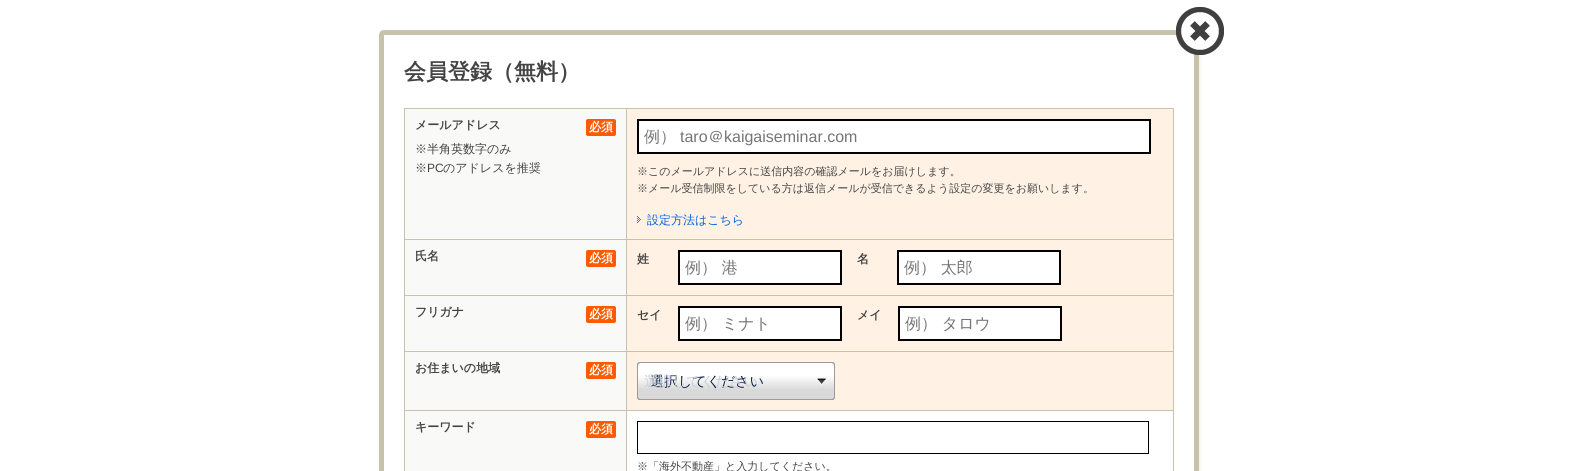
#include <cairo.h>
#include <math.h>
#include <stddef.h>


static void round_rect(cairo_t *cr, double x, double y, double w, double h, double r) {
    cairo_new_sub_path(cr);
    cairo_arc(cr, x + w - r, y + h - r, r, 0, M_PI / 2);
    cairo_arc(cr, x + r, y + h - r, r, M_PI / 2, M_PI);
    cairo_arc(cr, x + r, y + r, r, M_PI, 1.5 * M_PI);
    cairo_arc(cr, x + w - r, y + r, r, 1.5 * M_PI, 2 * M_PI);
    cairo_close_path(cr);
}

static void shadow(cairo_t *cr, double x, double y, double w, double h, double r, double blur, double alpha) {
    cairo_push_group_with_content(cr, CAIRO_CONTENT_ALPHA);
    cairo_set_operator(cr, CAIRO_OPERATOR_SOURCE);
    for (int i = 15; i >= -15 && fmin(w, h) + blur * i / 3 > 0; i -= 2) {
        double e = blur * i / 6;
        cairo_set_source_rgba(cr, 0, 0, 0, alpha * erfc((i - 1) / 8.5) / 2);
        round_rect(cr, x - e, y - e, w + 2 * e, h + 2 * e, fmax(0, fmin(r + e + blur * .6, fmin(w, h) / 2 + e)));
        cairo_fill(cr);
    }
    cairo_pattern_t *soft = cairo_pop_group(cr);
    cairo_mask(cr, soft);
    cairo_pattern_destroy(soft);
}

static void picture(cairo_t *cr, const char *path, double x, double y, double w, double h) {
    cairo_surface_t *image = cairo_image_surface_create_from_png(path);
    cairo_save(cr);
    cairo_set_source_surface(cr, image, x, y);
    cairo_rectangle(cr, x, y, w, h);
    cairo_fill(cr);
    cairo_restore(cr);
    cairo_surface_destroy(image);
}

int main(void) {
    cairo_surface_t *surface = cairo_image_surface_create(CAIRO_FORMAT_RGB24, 1577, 471);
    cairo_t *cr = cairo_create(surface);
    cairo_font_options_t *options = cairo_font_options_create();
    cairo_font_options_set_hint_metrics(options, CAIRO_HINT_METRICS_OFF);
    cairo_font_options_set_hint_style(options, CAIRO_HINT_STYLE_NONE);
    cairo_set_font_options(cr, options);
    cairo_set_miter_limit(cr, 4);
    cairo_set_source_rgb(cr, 1, 1, 1);
    cairo_paint(cr);
    cairo_set_source_rgb(cr, 0.933, 0.922, 0.894);
    shadow(cr, 380, 31, 820, 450, 5, 1.5, 1);
    cairo_set_source_rgb(cr, 1, 1, 1);
    round_rect(cr, 381.5, 32.5, 815, 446, 2.5);
    cairo_fill_preserve(cr);
    cairo_set_source_rgb(cr, 0.78, 0.761, 0.671);
    cairo_set_line_width(cr, 5);
    cairo_stroke(cr);
    picture(cr, "img1.png", 1176, 7, 48, 48);
    cairo_select_font_face(cr, "WenQuanYi Zen Hei", CAIRO_FONT_SLANT_NORMAL, CAIRO_FONT_WEIGHT_BOLD);
    cairo_set_font_size(cr, 22);
    cairo_set_source_rgb(cr, 0.267, 0.267, 0.267);
    cairo_move_to(cr, 404, 79);
    cairo_show_text(cr, "会員登録（無料）");
    cairo_set_source_rgb(cr, 0.78, 0.761, 0.671);
    cairo_rectangle(cr, 404, 108, 770, 1);
    cairo_fill(cr);
    cairo_rectangle(cr, 1173, 108, 1, 363);
    cairo_fill(cr);
    cairo_rectangle(cr, 404, 108, 1, 363);
    cairo_fill(cr);
    cairo_set_source_rgb(cr, 0.976, 0.976, 0.969);
    cairo_rectangle(cr, 405, 109, 221, 130);
    cairo_fill(cr);
    cairo_set_source_rgb(cr, 0.78, 0.761, 0.671);
    cairo_rectangle(cr, 626, 109, 1, 362);
    cairo_fill(cr);
    cairo_rectangle(cr, 405, 239, 768, 1);
    cairo_fill(cr);
    cairo_set_font_size(cr, 12);
    cairo_set_source_rgb(cr, 0.267, 0.267, 0.267);
    cairo_move_to(cr, 415, 129);
    cairo_show_text(cr, "メールアドレス");
    cairo_set_source_rgb(cr, 1, 0.353, 0);
    round_rect(cr, 586, 119, 30, 17, 2);
    cairo_fill(cr);
    cairo_set_source_rgb(cr, 1, 1, 1);
    cairo_move_to(cr, 589, 131);
    cairo_show_text(cr, "必須");
    cairo_select_font_face(cr, "WenQuanYi Zen Hei Medium", CAIRO_FONT_SLANT_NORMAL, CAIRO_FONT_WEIGHT_NORMAL);
    cairo_set_source_rgb(cr, 0.267, 0.267, 0.267);
    cairo_move_to(cr, 415, 153);
    cairo_show_text(cr, "※半角英数字のみ");
    cairo_move_to(cr, 415, 172);
    cairo_show_text(cr, "※");
    cairo_select_font_face(cr, "Liberation Sans", CAIRO_FONT_SLANT_NORMAL, CAIRO_FONT_WEIGHT_NORMAL);
    cairo_move_to(cr, 427, 172);
    cairo_show_text(cr, "PC");
    cairo_select_font_face(cr, "WenQuanYi Zen Hei Medium", CAIRO_FONT_SLANT_NORMAL, CAIRO_FONT_WEIGHT_NORMAL);
    cairo_move_to(cr, 443, 172);
    cairo_show_text(cr, "のアドレスを推奨");
    cairo_set_source_rgb(cr, 1, 0.949, 0.898);
    cairo_rectangle(cr, 627, 109, 546, 130);
    cairo_fill(cr);
    cairo_set_source_rgb(cr, 1, 1, 1);
    cairo_rectangle(cr, 638, 120, 512, 33);
    cairo_fill_preserve(cr);
    cairo_set_source_rgb(cr, 0, 0, 0);
    cairo_set_line_width(cr, 2);
    cairo_stroke(cr);
    cairo_set_font_size(cr, 16);
    cairo_set_source_rgb(cr, 0.459, 0.459, 0.459);
    cairo_move_to(cr, 644, 142);
    cairo_show_text(cr, "例）");
    cairo_select_font_face(cr, "Liberation Sans", CAIRO_FONT_SLANT_NORMAL, CAIRO_FONT_WEIGHT_NORMAL);
    cairo_move_to(cr, 680, 142);
    cairo_show_text(cr, "taro");
    cairo_select_font_face(cr, "WenQuanYi Zen Hei Medium", CAIRO_FONT_SLANT_NORMAL, CAIRO_FONT_WEIGHT_NORMAL);
    cairo_move_to(cr, 708, 142);
    cairo_show_text(cr, "＠");
    cairo_select_font_face(cr, "Liberation Sans", CAIRO_FONT_SLANT_NORMAL, CAIRO_FONT_WEIGHT_NORMAL);
    cairo_move_to(cr, 724, 142);
    cairo_show_text(cr, "kaigaiseminar.com");
    cairo_select_font_face(cr, "WenQuanYi Zen Hei Medium", CAIRO_FONT_SLANT_NORMAL, CAIRO_FONT_WEIGHT_NORMAL);
    cairo_set_font_size(cr, 11);
    cairo_set_source_rgb(cr, 0.267, 0.267, 0.267);
    cairo_move_to(cr, 637, 175);
    cairo_show_text(cr, "※このメールアドレスに送信内容の確認メールをお届けします。");
    cairo_move_to(cr, 637, 192);
    cairo_show_text(cr, "※メール受信制限をしている方は返信メールが受信できるよう設定の変更をお願いします。");
    picture(cr, "img2.png", 637, 216, 4, 7);
    cairo_set_font_size(cr, 12);
    cairo_set_source_rgb(cr, 0, 0.376, 0.863);
    cairo_move_to(cr, 647, 224);
    cairo_show_text(cr, "設定方法はこちら");
    cairo_set_source_rgb(cr, 0.976, 0.976, 0.969);
    cairo_rectangle(cr, 405, 240, 221, 55);
    cairo_fill(cr);
    cairo_set_source_rgb(cr, 0.78, 0.761, 0.671);
    cairo_rectangle(cr, 405, 295, 768, 1);
    cairo_fill(cr);
    cairo_select_font_face(cr, "WenQuanYi Zen Hei", CAIRO_FONT_SLANT_NORMAL, CAIRO_FONT_WEIGHT_BOLD);
    cairo_set_source_rgb(cr, 0.267, 0.267, 0.267);
    cairo_move_to(cr, 415, 260);
    cairo_show_text(cr, "氏名");
    cairo_set_source_rgb(cr, 1, 0.353, 0);
    round_rect(cr, 586, 250, 30, 17, 2);
    cairo_fill(cr);
    cairo_set_source_rgb(cr, 1, 1, 1);
    cairo_move_to(cr, 589, 262);
    cairo_show_text(cr, "必須");
    cairo_set_source_rgb(cr, 1, 0.949, 0.898);
    cairo_rectangle(cr, 627, 240, 546, 55);
    cairo_fill(cr);
    cairo_set_source_rgb(cr, 0.267, 0.267, 0.267);
    cairo_move_to(cr, 637, 263);
    cairo_show_text(cr, "姓");
    cairo_set_source_rgb(cr, 1, 1, 1);
    cairo_rectangle(cr, 679, 251, 162, 33);
    cairo_fill_preserve(cr);
    cairo_set_source_rgb(cr, 0, 0, 0);
    cairo_stroke(cr);
    cairo_select_font_face(cr, "WenQuanYi Zen Hei Medium", CAIRO_FONT_SLANT_NORMAL, CAIRO_FONT_WEIGHT_NORMAL);
    cairo_set_font_size(cr, 16);
    cairo_set_source_rgb(cr, 0.459, 0.459, 0.459);
    cairo_move_to(cr, 685, 273);
    cairo_show_text(cr, "例） 港");
    cairo_select_font_face(cr, "WenQuanYi Zen Hei", CAIRO_FONT_SLANT_NORMAL, CAIRO_FONT_WEIGHT_BOLD);
    cairo_set_font_size(cr, 12);
    cairo_set_source_rgb(cr, 0.267, 0.267, 0.267);
    cairo_move_to(cr, 857, 263);
    cairo_show_text(cr, "名");
    cairo_set_source_rgb(cr, 1, 1, 1);
    cairo_rectangle(cr, 898, 251, 162, 33);
    cairo_fill_preserve(cr);
    cairo_set_source_rgb(cr, 0, 0, 0);
    cairo_stroke(cr);
    cairo_select_font_face(cr, "WenQuanYi Zen Hei Medium", CAIRO_FONT_SLANT_NORMAL, CAIRO_FONT_WEIGHT_NORMAL);
    cairo_set_font_size(cr, 16);
    cairo_set_source_rgb(cr, 0.459, 0.459, 0.459);
    cairo_move_to(cr, 904, 273);
    cairo_show_text(cr, "例） 太郎");
    cairo_set_source_rgb(cr, 0.976, 0.976, 0.969);
    cairo_rectangle(cr, 405, 296, 221, 55);
    cairo_fill(cr);
    cairo_set_source_rgb(cr, 0.78, 0.761, 0.671);
    cairo_rectangle(cr, 405, 351, 768, 1);
    cairo_fill(cr);
    cairo_select_font_face(cr, "WenQuanYi Zen Hei", CAIRO_FONT_SLANT_NORMAL, CAIRO_FONT_WEIGHT_BOLD);
    cairo_set_font_size(cr, 12);
    cairo_set_source_rgb(cr, 0.267, 0.267, 0.267);
    cairo_move_to(cr, 415, 316);
    cairo_show_text(cr, "フリガナ");
    cairo_set_source_rgb(cr, 1, 0.353, 0);
    round_rect(cr, 586, 306, 30, 17, 2);
    cairo_fill(cr);
    cairo_set_source_rgb(cr, 1, 1, 1);
    cairo_move_to(cr, 589, 318);
    cairo_show_text(cr, "必須");
    cairo_set_source_rgb(cr, 1, 0.949, 0.898);
    cairo_rectangle(cr, 627, 296, 546, 55);
    cairo_fill(cr);
    cairo_set_source_rgb(cr, 0.267, 0.267, 0.267);
    cairo_move_to(cr, 637, 319);
    cairo_show_text(cr, "セイ");
    cairo_set_source_rgb(cr, 1, 1, 1);
    cairo_rectangle(cr, 679, 307, 162, 33);
    cairo_fill_preserve(cr);
    cairo_set_source_rgb(cr, 0, 0, 0);
    cairo_stroke(cr);
    cairo_select_font_face(cr, "WenQuanYi Zen Hei Medium", CAIRO_FONT_SLANT_NORMAL, CAIRO_FONT_WEIGHT_NORMAL);
    cairo_set_font_size(cr, 16);
    cairo_set_source_rgb(cr, 0.459, 0.459, 0.459);
    cairo_move_to(cr, 685, 329);
    cairo_show_text(cr, "例） ミナト");
    cairo_select_font_face(cr, "WenQuanYi Zen Hei", CAIRO_FONT_SLANT_NORMAL, CAIRO_FONT_WEIGHT_BOLD);
    cairo_set_font_size(cr, 12);
    cairo_set_source_rgb(cr, 0.267, 0.267, 0.267);
    cairo_move_to(cr, 857, 319);
    cairo_show_text(cr, "メイ");
    cairo_set_source_rgb(cr, 1, 1, 1);
    cairo_rectangle(cr, 899, 307, 162, 33);
    cairo_fill_preserve(cr);
    cairo_set_source_rgb(cr, 0, 0, 0);
    cairo_stroke(cr);
    cairo_select_font_face(cr, "WenQuanYi Zen Hei Medium", CAIRO_FONT_SLANT_NORMAL, CAIRO_FONT_WEIGHT_NORMAL);
    cairo_set_font_size(cr, 16);
    cairo_set_source_rgb(cr, 0.459, 0.459, 0.459);
    cairo_move_to(cr, 905, 329);
    cairo_show_text(cr, "例） タロウ");
    cairo_set_source_rgb(cr, 0.976, 0.976, 0.969);
    cairo_rectangle(cr, 405, 352, 221, 58);
    cairo_fill(cr);
    cairo_set_source_rgb(cr, 0.78, 0.761, 0.671);
    cairo_rectangle(cr, 405, 410, 768, 1);
    cairo_fill(cr);
    cairo_select_font_face(cr, "WenQuanYi Zen Hei", CAIRO_FONT_SLANT_NORMAL, CAIRO_FONT_WEIGHT_BOLD);
    cairo_set_font_size(cr, 12);
    cairo_set_source_rgb(cr, 0.267, 0.267, 0.267);
    cairo_move_to(cr, 415, 372);
    cairo_show_text(cr, "お住まいの地域");
    cairo_set_source_rgb(cr, 1, 0.353, 0);
    round_rect(cr, 586, 362, 30, 17, 2);
    cairo_fill(cr);
    cairo_set_source_rgb(cr, 1, 1, 1);
    cairo_move_to(cr, 589, 374);
    cairo_show_text(cr, "必須");
    cairo_set_source_rgb(cr, 1, 0.949, 0.898);
    cairo_rectangle(cr, 627, 352, 546, 58);
    cairo_fill(cr);
    picture(cr, "img3.png", 637, 362, 198, 38);
    cairo_select_font_face(cr, "WenQuanYi Zen Hei Medium", CAIRO_FONT_SLANT_NORMAL, CAIRO_FONT_WEIGHT_NORMAL);
    cairo_set_font_size(cr, 14);
    cairo_set_source_rgb(cr, 0.047, 0.133, 0.271);
    cairo_move_to(cr, 650, 386);
    cairo_show_text(cr, "選択してください");
    cairo_set_source_rgb(cr, 0.792, 0.804, 0.827);
    cairo_move_to(cr, 644, 386);
    cairo_show_text(cr, "選択してください");
    cairo_set_source_rgb(cr, 0.976, 0.976, 0.969);
    cairo_rectangle(cr, 405, 411, 221, 60);
    cairo_fill(cr);
    cairo_select_font_face(cr, "WenQuanYi Zen Hei", CAIRO_FONT_SLANT_NORMAL, CAIRO_FONT_WEIGHT_BOLD);
    cairo_set_font_size(cr, 12);
    cairo_set_source_rgb(cr, 0.267, 0.267, 0.267);
    cairo_move_to(cr, 415, 431);
    cairo_show_text(cr, "キーワード");
    cairo_set_source_rgb(cr, 1, 0.353, 0);
    round_rect(cr, 586, 421, 30, 17, 2);
    cairo_fill(cr);
    cairo_set_source_rgb(cr, 1, 1, 1);
    cairo_move_to(cr, 589, 433);
    cairo_show_text(cr, "必須");
    cairo_rectangle(cr, 637.5, 421.5, 511, 32);
    cairo_set_source_rgb(cr, 0, 0, 0);
    cairo_set_line_width(cr, 1);
    cairo_stroke(cr);
    cairo_select_font_face(cr, "WenQuanYi Zen Hei Medium", CAIRO_FONT_SLANT_NORMAL, CAIRO_FONT_WEIGHT_NORMAL);
    cairo_set_font_size(cr, 11);
    cairo_set_source_rgb(cr, 0.267, 0.267, 0.267);
    cairo_move_to(cr, 637, 470);
    cairo_show_text(cr, "※「海外不動産」と入力してください。");
    cairo_surface_write_to_png(surface, "page.png");
    cairo_font_options_destroy(options);
    cairo_destroy(cr);
    cairo_surface_destroy(surface);
    return 0;
}
